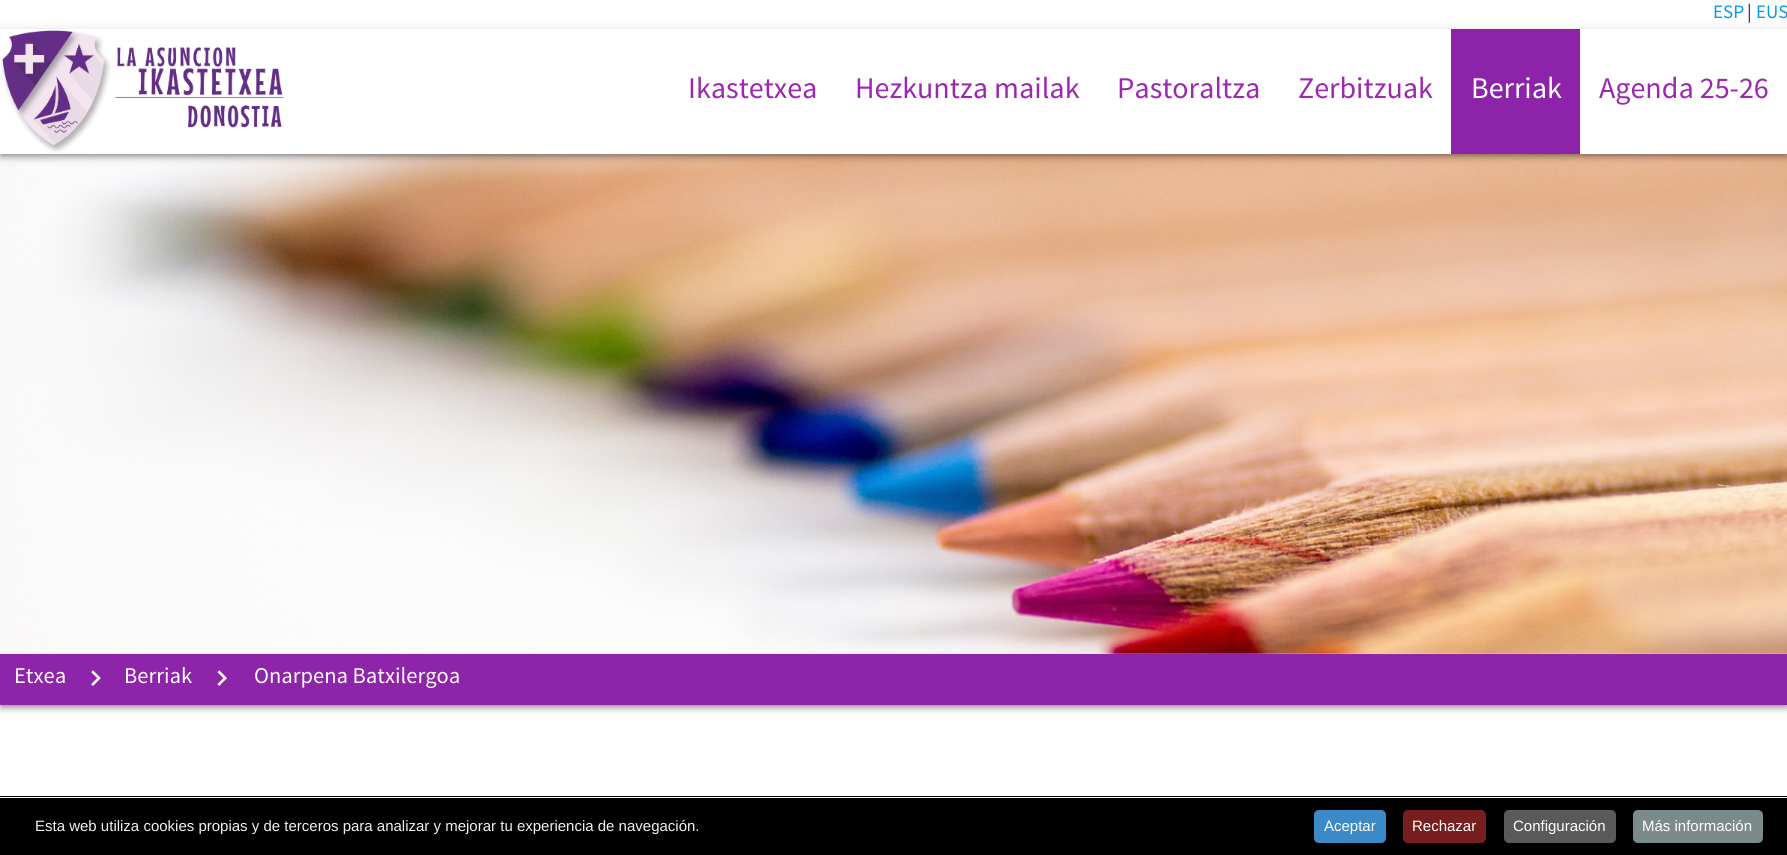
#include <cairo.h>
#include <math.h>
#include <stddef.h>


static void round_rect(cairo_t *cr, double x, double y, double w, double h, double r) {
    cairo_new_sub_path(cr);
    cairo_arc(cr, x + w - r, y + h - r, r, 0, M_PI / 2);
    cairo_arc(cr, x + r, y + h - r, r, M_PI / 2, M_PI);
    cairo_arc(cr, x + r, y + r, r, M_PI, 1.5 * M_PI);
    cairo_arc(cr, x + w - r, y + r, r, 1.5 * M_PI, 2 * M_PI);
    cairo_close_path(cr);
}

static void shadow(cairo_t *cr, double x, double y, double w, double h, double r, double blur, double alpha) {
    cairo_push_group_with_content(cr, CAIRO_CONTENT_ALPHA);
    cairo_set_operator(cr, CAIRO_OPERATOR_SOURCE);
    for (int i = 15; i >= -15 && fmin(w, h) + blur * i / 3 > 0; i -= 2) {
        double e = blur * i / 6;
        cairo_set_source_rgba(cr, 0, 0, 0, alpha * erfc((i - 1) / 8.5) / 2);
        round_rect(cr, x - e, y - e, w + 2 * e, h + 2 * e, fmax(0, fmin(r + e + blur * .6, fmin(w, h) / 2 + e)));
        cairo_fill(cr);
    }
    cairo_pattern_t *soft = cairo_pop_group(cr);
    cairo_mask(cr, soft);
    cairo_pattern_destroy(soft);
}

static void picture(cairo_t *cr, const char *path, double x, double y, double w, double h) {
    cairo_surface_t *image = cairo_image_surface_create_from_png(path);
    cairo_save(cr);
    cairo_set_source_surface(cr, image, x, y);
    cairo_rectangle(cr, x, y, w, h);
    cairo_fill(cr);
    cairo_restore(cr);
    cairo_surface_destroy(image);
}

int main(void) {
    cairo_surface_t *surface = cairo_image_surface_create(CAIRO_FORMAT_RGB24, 1787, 855);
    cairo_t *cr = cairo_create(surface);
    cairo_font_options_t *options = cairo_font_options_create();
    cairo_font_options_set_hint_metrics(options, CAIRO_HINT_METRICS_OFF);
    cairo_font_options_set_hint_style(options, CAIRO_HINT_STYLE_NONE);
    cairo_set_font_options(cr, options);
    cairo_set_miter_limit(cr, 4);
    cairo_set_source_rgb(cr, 1, 1, 1);
    cairo_paint(cr);
    cairo_select_font_face(cr, "Source Sans Pro", CAIRO_FONT_SLANT_NORMAL, CAIRO_FONT_WEIGHT_NORMAL);
    cairo_set_font_size(cr, 19);
    cairo_set_source_rgb(cr, 0.012, 0.608, 0.898);
    cairo_move_to(cr, 1713, 18);
    cairo_show_text(cr, "ESP");
    cairo_set_source_rgb(cr, 0.129, 0.129, 0.129);
    cairo_move_to(cr, 1747, 18);
    cairo_show_text(cr, "|");
    cairo_set_source_rgb(cr, 0.012, 0.608, 0.898);
    cairo_move_to(cr, 1756, 18);
    cairo_show_text(cr, "EUS");
    cairo_set_source_rgb(cr, 0, 0, 0);
    shadow(cr, 1, 658, 1785, 48, 0, 2.5, 0.3);
    shadow(cr, 0, 655, 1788, 51, 0, 6, 0.12);
    shadow(cr, 0, 659, 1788, 51, 0, 3, 0.14);
    picture(cr, "img2.png", 0, 154, 1787, 500);
    shadow(cr, 1, 33, 1785, 122, 0, 2.5, 0.3);
    shadow(cr, 0, 30, 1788, 125, 0, 6, 0.12);
    shadow(cr, 0, 34, 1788, 125, 0, 3, 0.14);
    cairo_set_source_rgb(cr, 1, 1, 1);
    cairo_rectangle(cr, 0, 29, 1787, 125);
    cairo_fill(cr);
    picture(cr, "img1.png", 1, 30, 283, 123);
    cairo_set_font_size(cr, 30);
    cairo_set_source_rgb(cr, 0.612, 0.153, 0.69);
    cairo_move_to(cr, 688, 98);
    cairo_show_text(cr, "Ikastetxea");
    cairo_move_to(cr, 855, 98);
    cairo_show_text(cr, "Hezkuntza mailak");
    cairo_move_to(cr, 1117, 98);
    cairo_show_text(cr, "Pastoraltza");
    cairo_move_to(cr, 1298, 98);
    cairo_show_text(cr, "Zerbitzuak");
    cairo_set_source_rgb(cr, 0.553, 0.137, 0.663);
    cairo_rectangle(cr, 1451, 29, 129, 125);
    cairo_fill(cr);
    cairo_set_source_rgb(cr, 1, 1, 1);
    cairo_move_to(cr, 1471, 98);
    cairo_show_text(cr, "Berriak");
    cairo_set_source_rgb(cr, 0.612, 0.153, 0.69);
    cairo_move_to(cr, 1599, 98);
    cairo_show_text(cr, "Agenda 25-26");
    cairo_set_source_rgb(cr, 0.557, 0.141, 0.667);
    cairo_rectangle(cr, 0, 654, 1787, 51);
    cairo_fill(cr);
    cairo_set_font_size(cr, 22.5);
    cairo_set_source_rgb(cr, 1, 1, 1);
    cairo_move_to(cr, 14, 683);
    cairo_show_text(cr, "Etxea");
    picture(cr, "img3.png", 91, 670, 10, 16);
    cairo_move_to(cr, 124, 683);
    cairo_show_text(cr, "Berriak");
    picture(cr, "img4.png", 217, 670, 10, 16);
    cairo_move_to(cr, 254, 683);
    cairo_show_text(cr, "Onarpena Batxilergoa");
    cairo_set_source_rgb(cr, 0, 0, 0);
    cairo_rectangle(cr, 0, 798, 1787, 57);
    cairo_fill(cr);
    cairo_rectangle(cr, 0, 796, 1787, 1);
    cairo_fill(cr);
    cairo_select_font_face(cr, "Liberation Sans", CAIRO_FONT_SLANT_NORMAL, CAIRO_FONT_WEIGHT_NORMAL);
    cairo_set_font_size(cr, 15);
    cairo_set_source_rgb(cr, 0.945, 0.945, 0.953);
    cairo_move_to(cr, 35, 831);
    cairo_show_text(cr, "Esta web utiliza cookies propias y de terceros para analizar y mejorar tu experiencia de navegación.");
    cairo_set_source_rgb(cr, 0.231, 0.537, 0.78);
    round_rect(cr, 1314, 810, 72, 33, 5);
    cairo_fill(cr);
    cairo_set_source_rgb(cr, 1, 1, 1);
    cairo_move_to(cr, 1324, 831);
    cairo_show_text(cr, "Aceptar");
    cairo_set_source_rgb(cr, 0.467, 0.122, 0.122);
    round_rect(cr, 1403, 810, 83, 33, 5);
    cairo_fill(cr);
    cairo_set_source_rgb(cr, 1, 1, 1);
    cairo_move_to(cr, 1412, 831);
    cairo_show_text(cr, "Rechazar");
    cairo_set_source_rgb(cr, 0.353, 0.353, 0.353);
    round_rect(cr, 1504, 810, 112, 33, 5);
    cairo_fill(cr);
    cairo_set_source_rgb(cr, 1, 1, 1);
    cairo_move_to(cr, 1513, 831);
    cairo_show_text(cr, "Configuración");
    cairo_set_source_rgb(cr, 0.482, 0.541, 0.545);
    round_rect(cr, 1633, 810, 130, 33, 5);
    cairo_fill(cr);
    cairo_set_source_rgb(cr, 1, 1, 1);
    cairo_move_to(cr, 1642, 831);
    cairo_show_text(cr, "Más información");
    cairo_surface_write_to_png(surface, "page.png");
    cairo_font_options_destroy(options);
    cairo_destroy(cr);
    cairo_surface_destroy(surface);
    return 0;
}
